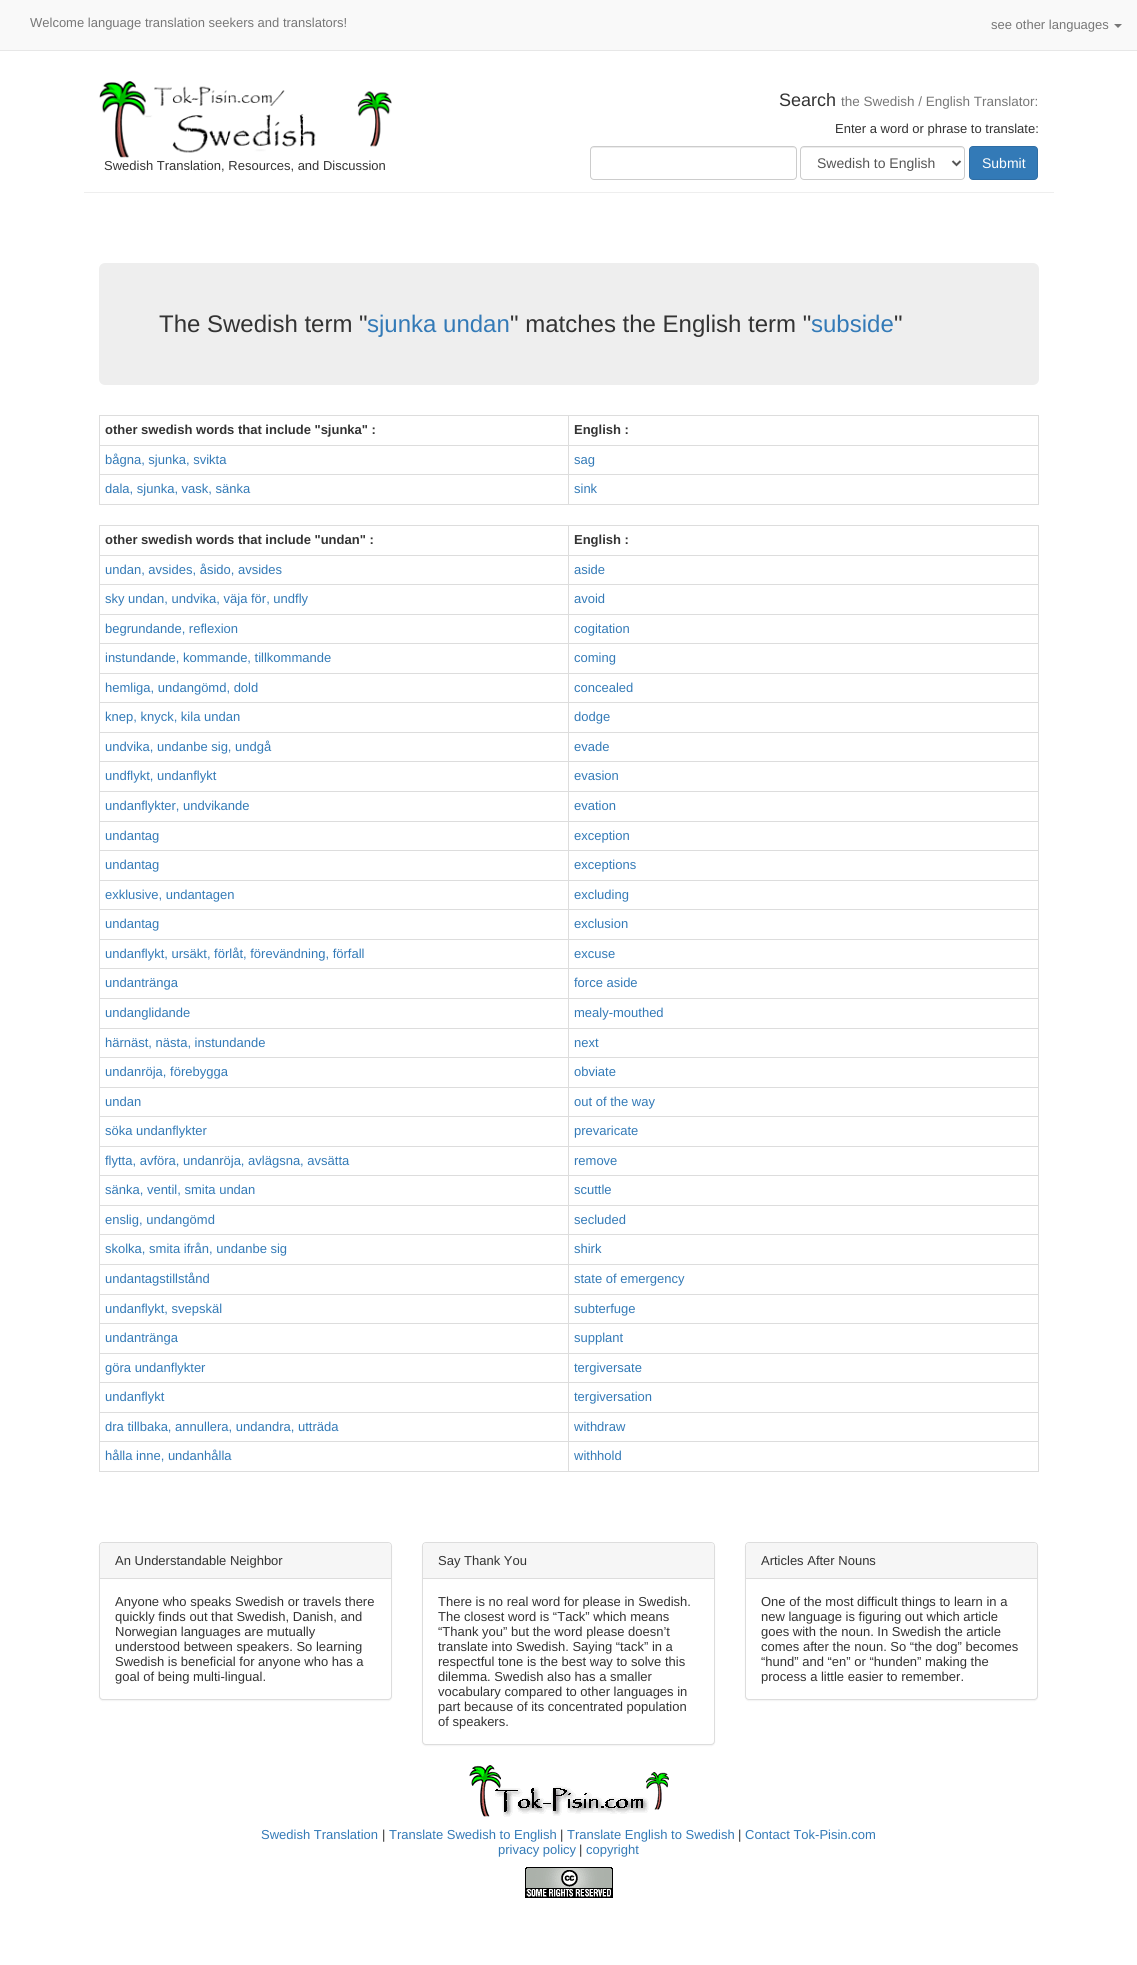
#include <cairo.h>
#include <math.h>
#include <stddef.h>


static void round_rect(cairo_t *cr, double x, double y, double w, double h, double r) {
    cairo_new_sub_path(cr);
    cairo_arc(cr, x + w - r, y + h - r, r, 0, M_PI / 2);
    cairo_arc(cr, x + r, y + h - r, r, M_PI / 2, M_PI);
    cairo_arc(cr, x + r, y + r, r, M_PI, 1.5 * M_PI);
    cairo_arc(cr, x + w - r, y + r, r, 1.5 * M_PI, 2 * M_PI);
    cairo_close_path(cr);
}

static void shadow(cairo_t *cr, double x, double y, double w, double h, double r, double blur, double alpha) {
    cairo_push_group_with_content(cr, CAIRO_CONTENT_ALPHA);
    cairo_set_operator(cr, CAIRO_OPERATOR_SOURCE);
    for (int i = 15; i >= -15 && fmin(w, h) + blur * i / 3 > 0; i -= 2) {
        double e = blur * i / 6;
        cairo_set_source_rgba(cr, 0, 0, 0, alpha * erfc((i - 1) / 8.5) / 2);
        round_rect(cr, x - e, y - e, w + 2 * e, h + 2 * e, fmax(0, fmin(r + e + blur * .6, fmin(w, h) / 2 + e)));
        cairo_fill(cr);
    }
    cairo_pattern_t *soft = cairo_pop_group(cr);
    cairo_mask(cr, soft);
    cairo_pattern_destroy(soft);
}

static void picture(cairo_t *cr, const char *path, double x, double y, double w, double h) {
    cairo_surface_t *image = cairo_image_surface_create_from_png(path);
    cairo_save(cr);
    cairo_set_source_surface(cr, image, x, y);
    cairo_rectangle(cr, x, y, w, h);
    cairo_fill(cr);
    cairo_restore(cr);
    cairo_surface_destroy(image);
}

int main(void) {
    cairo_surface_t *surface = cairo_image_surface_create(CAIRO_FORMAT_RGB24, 1137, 1965);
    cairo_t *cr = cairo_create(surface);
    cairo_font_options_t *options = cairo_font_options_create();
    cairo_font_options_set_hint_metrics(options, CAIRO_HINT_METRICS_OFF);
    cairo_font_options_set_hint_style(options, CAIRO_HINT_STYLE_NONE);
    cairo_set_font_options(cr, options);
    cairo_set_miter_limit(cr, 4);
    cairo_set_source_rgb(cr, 1, 1, 1);
    cairo_paint(cr);
    cairo_set_source_rgb(cr, 0.973, 0.973, 0.973);
    cairo_rectangle(cr, 0, 0, 1137, 50);
    cairo_fill(cr);
    cairo_set_source_rgb(cr, 0.906, 0.906, 0.906);
    cairo_rectangle(cr, 0, 50, 1137, 1);
    cairo_fill(cr);
    cairo_select_font_face(cr, "Liberation Sans", CAIRO_FONT_SLANT_NORMAL, CAIRO_FONT_WEIGHT_NORMAL);
    cairo_set_font_size(cr, 13);
    cairo_set_source_rgb(cr, 0.467, 0.467, 0.467);
    cairo_move_to(cr, 30, 27);
    cairo_show_text(cr, "Welcome language translation seekers and translators!");
    cairo_move_to(cr, 991, 29);
    cairo_show_text(cr, "see other languages");
    cairo_new_path(cr);
    cairo_move_to(cr, 1114, 24);
    cairo_line_to(cr, 1122, 24);
    cairo_line_to(cr, 1118, 28);
    cairo_close_path(cr);
    cairo_fill(cr);
    cairo_set_source_rgb(cr, 0.933, 0.933, 0.933);
    cairo_rectangle(cr, 84, 192, 970, 1);
    cairo_fill(cr);
    picture(cr, "img1.png", 99, 81, 293, 77);
    cairo_set_source_rgb(cr, 0.2, 0.2, 0.2);
    cairo_move_to(cr, 104, 170);
    cairo_show_text(cr, "Swedish Translation, Resources, and Discussion");
    cairo_set_font_size(cr, 18);
    cairo_move_to(cr, 779, 106);
    cairo_show_text(cr, "Search");
    cairo_set_font_size(cr, 13.5);
    cairo_set_source_rgb(cr, 0.467, 0.467, 0.467);
    cairo_move_to(cr, 841, 106);
    cairo_show_text(cr, "the Swedish / English Translator:");
    cairo_set_font_size(cr, 13);
    cairo_set_source_rgb(cr, 0.2, 0.2, 0.2);
    cairo_move_to(cr, 835, 133);
    cairo_show_text(cr, "Enter a word or phrase to translate:");
    cairo_set_source_rgb(cr, 0.925, 0.925, 0.925);
    cairo_new_path(cr);
    cairo_move_to(cr, 594, 148);
    cairo_line_to(cr, 793, 148);
    cairo_curve_to(cr, 795, 148, 796, 149, 796, 151);
    cairo_curve_to(cr, 796, 149, 795, 147, 793, 147);
    cairo_line_to(cr, 594, 147);
    cairo_curve_to(cr, 592, 147, 591, 149, 591, 151);
    cairo_curve_to(cr, 591, 149, 592, 148, 594, 148);
    cairo_close_path(cr);
    cairo_fill(cr);
    round_rect(cr, 590.5, 146.5, 206, 33, 3.5);
    cairo_set_source_rgb(cr, 0.8, 0.8, 0.8);
    cairo_set_line_width(cr, 1);
    cairo_stroke(cr);
    cairo_set_source_rgb(cr, 0.925, 0.925, 0.925);
    cairo_new_path(cr);
    cairo_move_to(cr, 804, 148);
    cairo_line_to(cr, 961, 148);
    cairo_curve_to(cr, 963, 148, 964, 149, 964, 151);
    cairo_curve_to(cr, 964, 149, 963, 147, 961, 147);
    cairo_line_to(cr, 804, 147);
    cairo_curve_to(cr, 802, 147, 801, 149, 801, 151);
    cairo_curve_to(cr, 801, 149, 802, 148, 804, 148);
    cairo_close_path(cr);
    cairo_fill(cr);
    round_rect(cr, 800.5, 146.5, 164, 33, 3.5);
    cairo_set_source_rgb(cr, 0.8, 0.8, 0.8);
    cairo_stroke(cr);
    cairo_new_path(cr);
    cairo_move_to(cr, 952.5, 161);
    cairo_line_to(cr, 956.5, 165);
    cairo_line_to(cr, 960.5, 161);
    cairo_set_source_rgb(cr, 0.333, 0.333, 0.333);
    cairo_set_line_width(cr, 2);
    cairo_stroke(cr);
    cairo_set_font_size(cr, 14);
    cairo_move_to(cr, 817, 168);
    cairo_show_text(cr, "Swedish to English");
    cairo_set_source_rgb(cr, 0.2, 0.478, 0.718);
    round_rect(cr, 969.5, 146.5, 68, 33, 3.5);
    cairo_fill_preserve(cr);
    cairo_set_source_rgb(cr, 0.18, 0.427, 0.643);
    cairo_set_line_width(cr, 1);
    cairo_stroke(cr);
    cairo_set_source_rgb(cr, 1, 1, 1);
    cairo_move_to(cr, 982, 168);
    cairo_show_text(cr, "Submit");
    cairo_set_source_rgb(cr, 0.933, 0.933, 0.933);
    round_rect(cr, 99, 263, 940, 122, 6);
    cairo_fill(cr);
    cairo_set_font_size(cr, 24);
    cairo_set_source_rgb(cr, 0.2, 0.2, 0.2);
    cairo_move_to(cr, 159, 332);
    cairo_show_text(cr, "The Swedish term \"");
    cairo_set_source_rgb(cr, 0.2, 0.478, 0.718);
    cairo_move_to(cr, 367, 332);
    cairo_show_text(cr, "sjunka undan");
    cairo_set_source_rgb(cr, 0.2, 0.2, 0.2);
    cairo_move_to(cr, 510, 332);
    cairo_show_text(cr, "\" matches the English term \"");
    cairo_set_source_rgb(cr, 0.2, 0.478, 0.718);
    cairo_move_to(cr, 811, 332);
    cairo_show_text(cr, "subside");
    cairo_set_source_rgb(cr, 0.2, 0.2, 0.2);
    cairo_move_to(cr, 894, 332);
    cairo_show_text(cr, "\"");
    cairo_set_source_rgb(cr, 0.867, 0.867, 0.867);
    cairo_rectangle(cr, 99, 415, 940, 1);
    cairo_fill(cr);
    cairo_rectangle(cr, 1038, 415, 1, 90);
    cairo_fill(cr);
    cairo_rectangle(cr, 99, 504, 940, 1);
    cairo_fill(cr);
    cairo_rectangle(cr, 99, 415, 1, 90);
    cairo_fill(cr);
    cairo_select_font_face(cr, "Liberation Sans", CAIRO_FONT_SLANT_NORMAL, CAIRO_FONT_WEIGHT_BOLD);
    cairo_set_font_size(cr, 13);
    cairo_set_source_rgb(cr, 0.2, 0.2, 0.2);
    cairo_move_to(cr, 105, 434);
    cairo_show_text(cr, "other swedish words that include \"sjunka\" :");
    cairo_set_source_rgb(cr, 0.867, 0.867, 0.867);
    cairo_rectangle(cr, 568, 445, 471, 1);
    cairo_fill(cr);
    cairo_rectangle(cr, 568, 474, 471, 1);
    cairo_fill(cr);
    cairo_rectangle(cr, 568, 474, 1, 31);
    cairo_fill(cr);
    cairo_rectangle(cr, 99, 474, 470, 1);
    cairo_fill(cr);
    cairo_rectangle(cr, 568, 445, 1, 30);
    cairo_fill(cr);
    cairo_rectangle(cr, 99, 445, 470, 1);
    cairo_fill(cr);
    cairo_rectangle(cr, 568, 415, 1, 31);
    cairo_fill(cr);
    cairo_set_source_rgb(cr, 0.2, 0.2, 0.2);
    cairo_move_to(cr, 574, 434);
    cairo_show_text(cr, "English :");
    cairo_select_font_face(cr, "Liberation Sans", CAIRO_FONT_SLANT_NORMAL, CAIRO_FONT_WEIGHT_NORMAL);
    cairo_set_source_rgb(cr, 0.2, 0.478, 0.718);
    cairo_move_to(cr, 105, 464);
    cairo_show_text(cr, "bågna, sjunka, svikta");
    cairo_move_to(cr, 574, 464);
    cairo_show_text(cr, "sag");
    cairo_move_to(cr, 105, 493);
    cairo_show_text(cr, "dala, sjunka, vask, sänka");
    cairo_move_to(cr, 574, 493);
    cairo_show_text(cr, "sink");
    cairo_set_source_rgb(cr, 0.867, 0.867, 0.867);
    cairo_rectangle(cr, 99, 525, 940, 1);
    cairo_fill(cr);
    cairo_rectangle(cr, 1038, 525, 1, 947);
    cairo_fill(cr);
    cairo_rectangle(cr, 99, 1471, 940, 1);
    cairo_fill(cr);
    cairo_rectangle(cr, 99, 525, 1, 947);
    cairo_fill(cr);
    cairo_select_font_face(cr, "Liberation Sans", CAIRO_FONT_SLANT_NORMAL, CAIRO_FONT_WEIGHT_BOLD);
    cairo_set_source_rgb(cr, 0.2, 0.2, 0.2);
    cairo_move_to(cr, 105, 544);
    cairo_show_text(cr, "other swedish words that include \"undan\" :");
    cairo_set_source_rgb(cr, 0.867, 0.867, 0.867);
    cairo_rectangle(cr, 568, 555, 471, 1);
    cairo_fill(cr);
    cairo_rectangle(cr, 568, 584, 471, 1);
    cairo_fill(cr);
    cairo_rectangle(cr, 568, 614, 471, 1);
    cairo_fill(cr);
    cairo_rectangle(cr, 568, 643, 471, 1);
    cairo_fill(cr);
    cairo_rectangle(cr, 568, 673, 471, 1);
    cairo_fill(cr);
    cairo_rectangle(cr, 568, 702, 471, 1);
    cairo_fill(cr);
    cairo_rectangle(cr, 568, 732, 471, 1);
    cairo_fill(cr);
    cairo_rectangle(cr, 568, 761, 471, 1);
    cairo_fill(cr);
    cairo_rectangle(cr, 568, 791, 471, 1);
    cairo_fill(cr);
    cairo_rectangle(cr, 568, 821, 471, 1);
    cairo_fill(cr);
    cairo_rectangle(cr, 568, 850, 471, 1);
    cairo_fill(cr);
    cairo_rectangle(cr, 568, 880, 471, 1);
    cairo_fill(cr);
    cairo_rectangle(cr, 568, 909, 471, 1);
    cairo_fill(cr);
    cairo_rectangle(cr, 568, 939, 471, 1);
    cairo_fill(cr);
    cairo_rectangle(cr, 568, 968, 471, 1);
    cairo_fill(cr);
    cairo_rectangle(cr, 568, 998, 471, 1);
    cairo_fill(cr);
    cairo_rectangle(cr, 568, 1028, 471, 1);
    cairo_fill(cr);
    cairo_rectangle(cr, 568, 1057, 471, 1);
    cairo_fill(cr);
    cairo_rectangle(cr, 568, 1087, 471, 1);
    cairo_fill(cr);
    cairo_rectangle(cr, 568, 1116, 471, 1);
    cairo_fill(cr);
    cairo_rectangle(cr, 568, 1146, 471, 1);
    cairo_fill(cr);
    cairo_rectangle(cr, 568, 1175, 471, 1);
    cairo_fill(cr);
    cairo_rectangle(cr, 568, 1205, 471, 1);
    cairo_fill(cr);
    cairo_rectangle(cr, 568, 1234, 471, 1);
    cairo_fill(cr);
    cairo_rectangle(cr, 568, 1264, 471, 1);
    cairo_fill(cr);
    cairo_rectangle(cr, 568, 1294, 471, 1);
    cairo_fill(cr);
    cairo_rectangle(cr, 568, 1323, 471, 1);
    cairo_fill(cr);
    cairo_rectangle(cr, 568, 1353, 471, 1);
    cairo_fill(cr);
    cairo_rectangle(cr, 568, 1382, 471, 1);
    cairo_fill(cr);
    cairo_rectangle(cr, 568, 1412, 471, 1);
    cairo_fill(cr);
    cairo_rectangle(cr, 568, 1441, 471, 1);
    cairo_fill(cr);
    cairo_rectangle(cr, 568, 1441, 1, 31);
    cairo_fill(cr);
    cairo_rectangle(cr, 99, 1441, 470, 1);
    cairo_fill(cr);
    cairo_rectangle(cr, 568, 1412, 1, 30);
    cairo_fill(cr);
    cairo_rectangle(cr, 99, 1412, 470, 1);
    cairo_fill(cr);
    cairo_rectangle(cr, 568, 1382, 1, 31);
    cairo_fill(cr);
    cairo_rectangle(cr, 99, 1382, 470, 1);
    cairo_fill(cr);
    cairo_rectangle(cr, 568, 1353, 1, 30);
    cairo_fill(cr);
    cairo_rectangle(cr, 99, 1353, 470, 1);
    cairo_fill(cr);
    cairo_rectangle(cr, 568, 1323, 1, 31);
    cairo_fill(cr);
    cairo_rectangle(cr, 99, 1323, 470, 1);
    cairo_fill(cr);
    cairo_rectangle(cr, 568, 1294, 1, 30);
    cairo_fill(cr);
    cairo_rectangle(cr, 99, 1294, 470, 1);
    cairo_fill(cr);
    cairo_rectangle(cr, 568, 1264, 1, 31);
    cairo_fill(cr);
    cairo_rectangle(cr, 99, 1264, 470, 1);
    cairo_fill(cr);
    cairo_rectangle(cr, 568, 1234, 1, 31);
    cairo_fill(cr);
    cairo_rectangle(cr, 99, 1234, 470, 1);
    cairo_fill(cr);
    cairo_rectangle(cr, 568, 1205, 1, 30);
    cairo_fill(cr);
    cairo_rectangle(cr, 99, 1205, 470, 1);
    cairo_fill(cr);
    cairo_rectangle(cr, 568, 1175, 1, 31);
    cairo_fill(cr);
    cairo_rectangle(cr, 99, 1175, 470, 1);
    cairo_fill(cr);
    cairo_rectangle(cr, 568, 1146, 1, 30);
    cairo_fill(cr);
    cairo_rectangle(cr, 99, 1146, 470, 1);
    cairo_fill(cr);
    cairo_rectangle(cr, 568, 1116, 1, 31);
    cairo_fill(cr);
    cairo_rectangle(cr, 99, 1116, 470, 1);
    cairo_fill(cr);
    cairo_rectangle(cr, 568, 1087, 1, 30);
    cairo_fill(cr);
    cairo_rectangle(cr, 99, 1087, 470, 1);
    cairo_fill(cr);
    cairo_rectangle(cr, 568, 1057, 1, 31);
    cairo_fill(cr);
    cairo_rectangle(cr, 99, 1057, 470, 1);
    cairo_fill(cr);
    cairo_rectangle(cr, 568, 1028, 1, 30);
    cairo_fill(cr);
    cairo_rectangle(cr, 99, 1028, 470, 1);
    cairo_fill(cr);
    cairo_rectangle(cr, 568, 998, 1, 31);
    cairo_fill(cr);
    cairo_rectangle(cr, 99, 998, 470, 1);
    cairo_fill(cr);
    cairo_rectangle(cr, 568, 968, 1, 31);
    cairo_fill(cr);
    cairo_rectangle(cr, 99, 968, 470, 1);
    cairo_fill(cr);
    cairo_rectangle(cr, 568, 939, 1, 30);
    cairo_fill(cr);
    cairo_rectangle(cr, 99, 939, 470, 1);
    cairo_fill(cr);
    cairo_rectangle(cr, 568, 909, 1, 31);
    cairo_fill(cr);
    cairo_rectangle(cr, 99, 909, 470, 1);
    cairo_fill(cr);
    cairo_rectangle(cr, 568, 880, 1, 30);
    cairo_fill(cr);
    cairo_rectangle(cr, 99, 880, 470, 1);
    cairo_fill(cr);
    cairo_rectangle(cr, 568, 850, 1, 31);
    cairo_fill(cr);
    cairo_rectangle(cr, 99, 850, 470, 1);
    cairo_fill(cr);
    cairo_rectangle(cr, 568, 821, 1, 30);
    cairo_fill(cr);
    cairo_rectangle(cr, 99, 821, 470, 1);
    cairo_fill(cr);
    cairo_rectangle(cr, 568, 791, 1, 31);
    cairo_fill(cr);
    cairo_rectangle(cr, 99, 791, 470, 1);
    cairo_fill(cr);
    cairo_rectangle(cr, 568, 761, 1, 31);
    cairo_fill(cr);
    cairo_rectangle(cr, 99, 761, 470, 1);
    cairo_fill(cr);
    cairo_rectangle(cr, 568, 732, 1, 30);
    cairo_fill(cr);
    cairo_rectangle(cr, 99, 732, 470, 1);
    cairo_fill(cr);
    cairo_rectangle(cr, 568, 702, 1, 31);
    cairo_fill(cr);
    cairo_rectangle(cr, 99, 702, 470, 1);
    cairo_fill(cr);
    cairo_rectangle(cr, 568, 673, 1, 30);
    cairo_fill(cr);
    cairo_rectangle(cr, 99, 673, 470, 1);
    cairo_fill(cr);
    cairo_rectangle(cr, 568, 643, 1, 31);
    cairo_fill(cr);
    cairo_rectangle(cr, 99, 643, 470, 1);
    cairo_fill(cr);
    cairo_rectangle(cr, 568, 614, 1, 30);
    cairo_fill(cr);
    cairo_rectangle(cr, 99, 614, 470, 1);
    cairo_fill(cr);
    cairo_rectangle(cr, 568, 584, 1, 31);
    cairo_fill(cr);
    cairo_rectangle(cr, 99, 584, 470, 1);
    cairo_fill(cr);
    cairo_rectangle(cr, 568, 555, 1, 30);
    cairo_fill(cr);
    cairo_rectangle(cr, 99, 555, 470, 1);
    cairo_fill(cr);
    cairo_rectangle(cr, 568, 525, 1, 31);
    cairo_fill(cr);
    cairo_set_source_rgb(cr, 0.2, 0.2, 0.2);
    cairo_move_to(cr, 574, 544);
    cairo_show_text(cr, "English :");
    cairo_select_font_face(cr, "Liberation Sans", CAIRO_FONT_SLANT_NORMAL, CAIRO_FONT_WEIGHT_NORMAL);
    cairo_set_source_rgb(cr, 0.2, 0.478, 0.718);
    cairo_move_to(cr, 105, 574);
    cairo_show_text(cr, "undan, avsides, åsido, avsides");
    cairo_move_to(cr, 574, 574);
    cairo_show_text(cr, "aside");
    cairo_move_to(cr, 105, 603);
    cairo_show_text(cr, "sky undan, undvika, väja för, undfly");
    cairo_move_to(cr, 574, 603);
    cairo_show_text(cr, "avoid");
    cairo_move_to(cr, 105, 633);
    cairo_show_text(cr, "begrundande, reflexion");
    cairo_move_to(cr, 574, 633);
    cairo_show_text(cr, "cogitation");
    cairo_move_to(cr, 105, 662);
    cairo_show_text(cr, "instundande, kommande, tillkommande");
    cairo_move_to(cr, 574, 662);
    cairo_show_text(cr, "coming");
    cairo_move_to(cr, 105, 692);
    cairo_show_text(cr, "hemliga, undangömd, dold");
    cairo_move_to(cr, 574, 692);
    cairo_show_text(cr, "concealed");
    cairo_move_to(cr, 105, 721);
    cairo_show_text(cr, "knep, knyck, kila undan");
    cairo_move_to(cr, 574, 721);
    cairo_show_text(cr, "dodge");
    cairo_move_to(cr, 105, 751);
    cairo_show_text(cr, "undvika, undanbe sig, undgå");
    cairo_move_to(cr, 574, 751);
    cairo_show_text(cr, "evade");
    cairo_move_to(cr, 105, 780);
    cairo_show_text(cr, "undflykt, undanflykt");
    cairo_move_to(cr, 574, 780);
    cairo_show_text(cr, "evasion");
    cairo_move_to(cr, 105, 810);
    cairo_show_text(cr, "undanflykter, undvikande");
    cairo_move_to(cr, 574, 810);
    cairo_show_text(cr, "evation");
    cairo_move_to(cr, 105, 840);
    cairo_show_text(cr, "undantag");
    cairo_move_to(cr, 574, 840);
    cairo_show_text(cr, "exception");
    cairo_move_to(cr, 105, 869);
    cairo_show_text(cr, "undantag");
    cairo_move_to(cr, 574, 869);
    cairo_show_text(cr, "exceptions");
    cairo_move_to(cr, 105, 899);
    cairo_show_text(cr, "exklusive, undantagen");
    cairo_move_to(cr, 574, 899);
    cairo_show_text(cr, "excluding");
    cairo_move_to(cr, 105, 928);
    cairo_show_text(cr, "undantag");
    cairo_move_to(cr, 574, 928);
    cairo_show_text(cr, "exclusion");
    cairo_move_to(cr, 105, 958);
    cairo_show_text(cr, "undanflykt, ursäkt, förlåt, förevändning, förfall");
    cairo_move_to(cr, 574, 958);
    cairo_show_text(cr, "excuse");
    cairo_move_to(cr, 105, 987);
    cairo_show_text(cr, "undantränga");
    cairo_move_to(cr, 574, 987);
    cairo_show_text(cr, "force aside");
    cairo_move_to(cr, 105, 1017);
    cairo_show_text(cr, "undanglidande");
    cairo_move_to(cr, 574, 1017);
    cairo_show_text(cr, "mealy-mouthed");
    cairo_move_to(cr, 105, 1047);
    cairo_show_text(cr, "härnäst, nästa, instundande");
    cairo_move_to(cr, 574, 1047);
    cairo_show_text(cr, "next");
    cairo_move_to(cr, 105, 1076);
    cairo_show_text(cr, "undanröja, förebygga");
    cairo_move_to(cr, 574, 1076);
    cairo_show_text(cr, "obviate");
    cairo_move_to(cr, 105, 1106);
    cairo_show_text(cr, "undan");
    cairo_move_to(cr, 574, 1106);
    cairo_show_text(cr, "out of the way");
    cairo_move_to(cr, 105, 1135);
    cairo_show_text(cr, "söka undanflykter");
    cairo_move_to(cr, 574, 1135);
    cairo_show_text(cr, "prevaricate");
    cairo_move_to(cr, 105, 1165);
    cairo_show_text(cr, "flytta, avföra, undanröja, avlägsna, avsätta");
    cairo_move_to(cr, 574, 1165);
    cairo_show_text(cr, "remove");
    cairo_move_to(cr, 105, 1194);
    cairo_show_text(cr, "sänka, ventil, smita undan");
    cairo_move_to(cr, 574, 1194);
    cairo_show_text(cr, "scuttle");
    cairo_move_to(cr, 105, 1224);
    cairo_show_text(cr, "enslig, undangömd");
    cairo_move_to(cr, 574, 1224);
    cairo_show_text(cr, "secluded");
    cairo_move_to(cr, 105, 1253);
    cairo_show_text(cr, "skolka, smita ifrån, undanbe sig");
    cairo_move_to(cr, 574, 1253);
    cairo_show_text(cr, "shirk");
    cairo_move_to(cr, 105, 1283);
    cairo_show_text(cr, "undantagstillstånd");
    cairo_move_to(cr, 574, 1283);
    cairo_show_text(cr, "state of emergency");
    cairo_move_to(cr, 105, 1313);
    cairo_show_text(cr, "undanflykt, svepskäl");
    cairo_move_to(cr, 574, 1313);
    cairo_show_text(cr, "subterfuge");
    cairo_move_to(cr, 105, 1342);
    cairo_show_text(cr, "undantränga");
    cairo_move_to(cr, 574, 1342);
    cairo_show_text(cr, "supplant");
    cairo_move_to(cr, 105, 1372);
    cairo_show_text(cr, "göra undanflykter");
    cairo_move_to(cr, 574, 1372);
    cairo_show_text(cr, "tergiversate");
    cairo_move_to(cr, 105, 1401);
    cairo_show_text(cr, "undanflykt");
    cairo_move_to(cr, 574, 1401);
    cairo_show_text(cr, "tergiversation");
    cairo_move_to(cr, 105, 1431);
    cairo_show_text(cr, "dra tillbaka, annullera, undandra, utträda");
    cairo_move_to(cr, 574, 1431);
    cairo_show_text(cr, "withdraw");
    cairo_move_to(cr, 105, 1460);
    cairo_show_text(cr, "hålla inne, undanhålla");
    cairo_move_to(cr, 574, 1460);
    cairo_show_text(cr, "withhold");
    cairo_set_source_rgb(cr, 0, 0, 0);
    shadow(cr, 99, 1543, 293, 158, 4, 0.5, 0.05);
    cairo_set_source_rgb(cr, 1, 1, 1);
    round_rect(cr, 99.5, 1542.5, 292, 157, 3.5);
    cairo_fill_preserve(cr);
    cairo_set_source_rgb(cr, 0.867, 0.867, 0.867);
    cairo_stroke(cr);
    cairo_set_source_rgb(cr, 0.961, 0.961, 0.961);
    cairo_new_path(cr);
    cairo_move_to(cr, 103, 1543);
    cairo_line_to(cr, 388, 1543);
    cairo_curve_to(cr, 389.5, 1543, 391, 1544.5, 391, 1546);
    cairo_line_to(cr, 391, 1579);
    cairo_line_to(cr, 100, 1579);
    cairo_line_to(cr, 100, 1546);
    cairo_curve_to(cr, 100, 1544.5, 101.5, 1543, 103, 1543);
    cairo_close_path(cr);
    cairo_fill(cr);
    cairo_set_source_rgb(cr, 0.867, 0.867, 0.867);
    cairo_rectangle(cr, 100, 1578, 291, 1);
    cairo_fill(cr);
    cairo_set_source_rgb(cr, 0.2, 0.2, 0.2);
    cairo_move_to(cr, 115, 1565);
    cairo_show_text(cr, "An Understandable Neighbor");
    cairo_move_to(cr, 115, 1606);
    cairo_show_text(cr, "Anyone who speaks Swedish or travels there");
    cairo_move_to(cr, 115, 1621);
    cairo_show_text(cr, "quickly finds out that Swedish, Danish, and");
    cairo_move_to(cr, 115, 1636);
    cairo_show_text(cr, "Norwegian languages are mutually");
    cairo_move_to(cr, 115, 1651);
    cairo_show_text(cr, "understood between speakers. So learning");
    cairo_move_to(cr, 115, 1666);
    cairo_show_text(cr, "Swedish is beneficial for anyone who has a");
    cairo_move_to(cr, 115, 1681);
    cairo_show_text(cr, "goal of being multi-lingual.");
    cairo_set_source_rgb(cr, 0, 0, 0);
    shadow(cr, 422, 1543, 293, 203, 4, 0.5, 0.05);
    cairo_set_source_rgb(cr, 1, 1, 1);
    round_rect(cr, 422.5, 1542.5, 292, 202, 3.5);
    cairo_fill_preserve(cr);
    cairo_set_source_rgb(cr, 0.867, 0.867, 0.867);
    cairo_stroke(cr);
    cairo_set_source_rgb(cr, 0.961, 0.961, 0.961);
    cairo_new_path(cr);
    cairo_move_to(cr, 426, 1543);
    cairo_line_to(cr, 711, 1543);
    cairo_curve_to(cr, 712.5, 1543, 714, 1544.5, 714, 1546);
    cairo_line_to(cr, 714, 1579);
    cairo_line_to(cr, 423, 1579);
    cairo_line_to(cr, 423, 1546);
    cairo_curve_to(cr, 423, 1544.5, 424.5, 1543, 426, 1543);
    cairo_close_path(cr);
    cairo_fill(cr);
    cairo_set_source_rgb(cr, 0.867, 0.867, 0.867);
    cairo_rectangle(cr, 423, 1578, 291, 1);
    cairo_fill(cr);
    cairo_set_source_rgb(cr, 0.2, 0.2, 0.2);
    cairo_move_to(cr, 438, 1565);
    cairo_show_text(cr, "Say Thank You");
    cairo_move_to(cr, 438, 1606);
    cairo_show_text(cr, "There is no real word for please in Swedish.");
    cairo_move_to(cr, 438, 1621);
    cairo_show_text(cr, "The closest word is “Tack” which means");
    cairo_move_to(cr, 438, 1636);
    cairo_show_text(cr, "“Thank you” but the word please doesn’t");
    cairo_move_to(cr, 438, 1651);
    cairo_show_text(cr, "translate into Swedish. Saying “tack” in a");
    cairo_move_to(cr, 438, 1666);
    cairo_show_text(cr, "respectful tone is the best way to solve this");
    cairo_move_to(cr, 438, 1681);
    cairo_show_text(cr, "dilemma. Swedish also has a smaller");
    cairo_move_to(cr, 438, 1696);
    cairo_show_text(cr, "vocabulary compared to other languages in");
    cairo_move_to(cr, 438, 1711);
    cairo_show_text(cr, "part because of its concentrated population");
    cairo_move_to(cr, 438, 1726);
    cairo_show_text(cr, "of speakers.");
    cairo_set_source_rgb(cr, 0, 0, 0);
    shadow(cr, 745, 1543, 293, 158, 4, 0.5, 0.05);
    cairo_set_source_rgb(cr, 1, 1, 1);
    round_rect(cr, 745.5, 1542.5, 292, 157, 3.5);
    cairo_fill_preserve(cr);
    cairo_set_source_rgb(cr, 0.867, 0.867, 0.867);
    cairo_stroke(cr);
    cairo_set_source_rgb(cr, 0.961, 0.961, 0.961);
    cairo_new_path(cr);
    cairo_move_to(cr, 749, 1543);
    cairo_line_to(cr, 1034, 1543);
    cairo_curve_to(cr, 1035.5, 1543, 1037, 1544.5, 1037, 1546);
    cairo_line_to(cr, 1037, 1579);
    cairo_line_to(cr, 746, 1579);
    cairo_line_to(cr, 746, 1546);
    cairo_curve_to(cr, 746, 1544.5, 747.5, 1543, 749, 1543);
    cairo_close_path(cr);
    cairo_fill(cr);
    cairo_set_source_rgb(cr, 0.867, 0.867, 0.867);
    cairo_rectangle(cr, 746, 1578, 291, 1);
    cairo_fill(cr);
    cairo_set_source_rgb(cr, 0.2, 0.2, 0.2);
    cairo_move_to(cr, 761, 1565);
    cairo_show_text(cr, "Articles After Nouns");
    cairo_move_to(cr, 761, 1606);
    cairo_show_text(cr, "One of the most difficult things to learn in a");
    cairo_move_to(cr, 761, 1621);
    cairo_show_text(cr, "new language is figuring out which article");
    cairo_move_to(cr, 761, 1636);
    cairo_show_text(cr, "goes with the noun. In Swedish the article");
    cairo_move_to(cr, 761, 1651);
    cairo_show_text(cr, "comes after the noun. So “the dog” becomes");
    cairo_move_to(cr, 761, 1666);
    cairo_show_text(cr, "“hund” and “en” or “hunden” making the");
    cairo_move_to(cr, 761, 1681);
    cairo_show_text(cr, "process a little easier to remember.");
    picture(cr, "img2.png", 469, 1765, 200, 52);
    cairo_set_source_rgb(cr, 0.2, 0.478, 0.718);
    cairo_move_to(cr, 261, 1839);
    cairo_show_text(cr, "Swedish Translation");
    cairo_set_source_rgb(cr, 0.2, 0.2, 0.2);
    cairo_move_to(cr, 382, 1839);
    cairo_show_text(cr, "|");
    cairo_set_source_rgb(cr, 0.2, 0.478, 0.718);
    cairo_move_to(cr, 389, 1839);
    cairo_show_text(cr, "Translate Swedish to English");
    cairo_set_source_rgb(cr, 0.2, 0.2, 0.2);
    cairo_move_to(cr, 560, 1839);
    cairo_show_text(cr, "|");
    cairo_set_source_rgb(cr, 0.2, 0.478, 0.718);
    cairo_move_to(cr, 567, 1839);
    cairo_show_text(cr, "Translate English to Swedish");
    cairo_set_source_rgb(cr, 0.2, 0.2, 0.2);
    cairo_move_to(cr, 738, 1839);
    cairo_show_text(cr, "|");
    cairo_set_source_rgb(cr, 0.2, 0.478, 0.718);
    cairo_move_to(cr, 745, 1839);
    cairo_show_text(cr, "Contact Tok-Pisin.com");
    cairo_move_to(cr, 498, 1854);
    cairo_show_text(cr, "privacy policy");
    cairo_set_source_rgb(cr, 0.2, 0.2, 0.2);
    cairo_move_to(cr, 579, 1854);
    cairo_show_text(cr, "|");
    cairo_set_source_rgb(cr, 0.2, 0.478, 0.718);
    cairo_move_to(cr, 586, 1854);
    cairo_show_text(cr, "copyright");
    picture(cr, "img3.png", 525, 1867, 88, 31);
    cairo_surface_write_to_png(surface, "page.png");
    cairo_font_options_destroy(options);
    cairo_destroy(cr);
    cairo_surface_destroy(surface);
    return 0;
}
